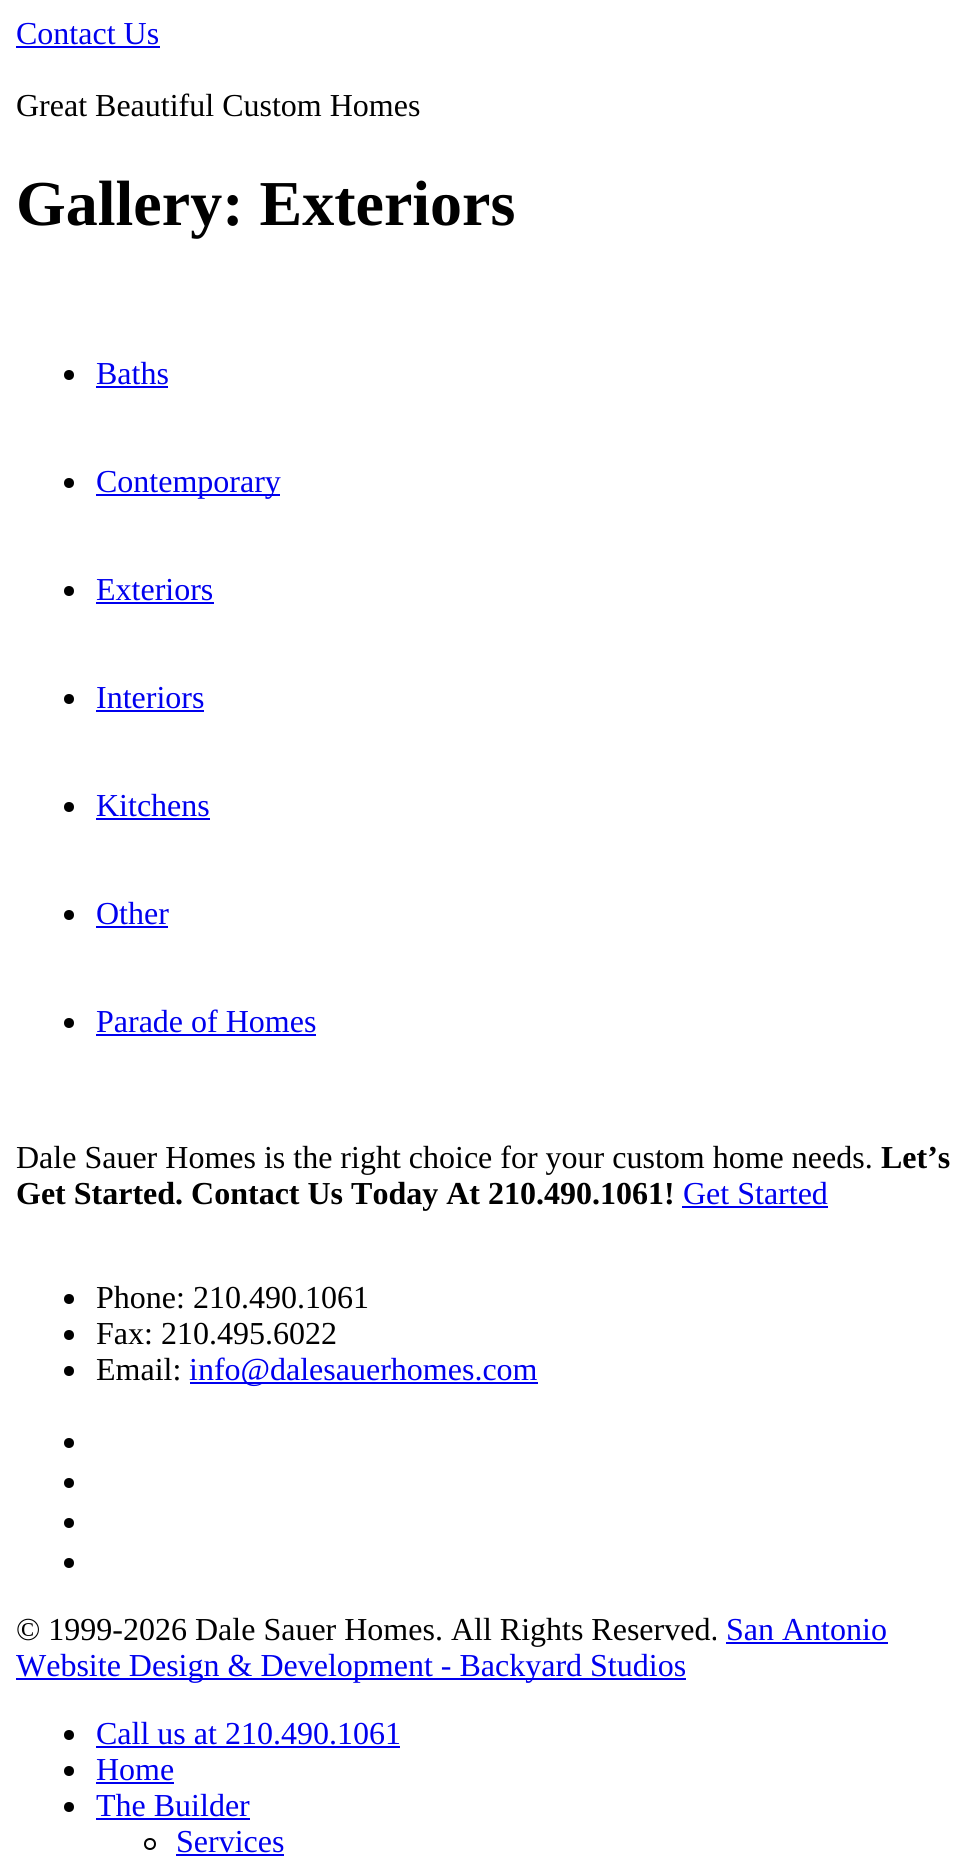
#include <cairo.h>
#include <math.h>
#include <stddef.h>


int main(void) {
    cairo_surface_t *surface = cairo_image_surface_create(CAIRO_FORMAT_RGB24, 976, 1860);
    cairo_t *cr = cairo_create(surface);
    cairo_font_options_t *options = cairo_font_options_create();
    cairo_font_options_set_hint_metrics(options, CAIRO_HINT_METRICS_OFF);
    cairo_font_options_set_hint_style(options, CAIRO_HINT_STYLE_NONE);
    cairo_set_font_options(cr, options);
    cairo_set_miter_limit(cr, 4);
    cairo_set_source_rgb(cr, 1, 1, 1);
    cairo_paint(cr);
    cairo_select_font_face(cr, "Liberation Serif", CAIRO_FONT_SLANT_NORMAL, CAIRO_FONT_WEIGHT_NORMAL);
    cairo_set_font_size(cr, 32);
    cairo_set_source_rgb(cr, 0, 0, 0.933);
    cairo_move_to(cr, 16, 44);
    cairo_show_text(cr, "Contact Us");
    cairo_rectangle(cr, 16, 46, 144, 2);
    cairo_fill(cr);
    cairo_set_source_rgb(cr, 0, 0, 0);
    cairo_move_to(cr, 16, 116);
    cairo_show_text(cr, "Great Beautiful Custom Homes");
    cairo_select_font_face(cr, "Liberation Serif", CAIRO_FONT_SLANT_NORMAL, CAIRO_FONT_WEIGHT_BOLD);
    cairo_set_font_size(cr, 64);
    cairo_move_to(cr, 16, 225);
    cairo_show_text(cr, "Gallery: Exteriors");
    cairo_new_path(cr);
    cairo_arc(cr, 69, 375, 5, 0, 2 * M_PI);
    cairo_fill(cr);
    cairo_select_font_face(cr, "Liberation Serif", CAIRO_FONT_SLANT_NORMAL, CAIRO_FONT_WEIGHT_NORMAL);
    cairo_set_font_size(cr, 32);
    cairo_set_source_rgb(cr, 0, 0, 0.933);
    cairo_move_to(cr, 96, 384);
    cairo_show_text(cr, "Baths");
    cairo_rectangle(cr, 96, 386, 72, 2);
    cairo_fill(cr);
    cairo_set_source_rgb(cr, 0, 0, 0);
    cairo_arc(cr, 69, 483, 5, 0, 2 * M_PI);
    cairo_fill(cr);
    cairo_set_source_rgb(cr, 0, 0, 0.933);
    cairo_rectangle(cr, 96, 494, 184, 2);
    cairo_fill(cr);
    cairo_move_to(cr, 96, 492);
    cairo_show_text(cr, "Contemporary");
    cairo_set_source_rgb(cr, 0, 0, 0);
    cairo_new_path(cr);
    cairo_arc(cr, 69, 591, 5, 0, 2 * M_PI);
    cairo_fill(cr);
    cairo_set_source_rgb(cr, 0, 0, 0.933);
    cairo_move_to(cr, 96, 600);
    cairo_show_text(cr, "Exteriors");
    cairo_rectangle(cr, 96, 602, 118, 2);
    cairo_fill(cr);
    cairo_set_source_rgb(cr, 0, 0, 0);
    cairo_arc(cr, 69, 699, 5, 0, 2 * M_PI);
    cairo_fill(cr);
    cairo_set_source_rgb(cr, 0, 0, 0.933);
    cairo_move_to(cr, 96, 708);
    cairo_show_text(cr, "Interiors");
    cairo_rectangle(cr, 96, 710, 108, 2);
    cairo_fill(cr);
    cairo_set_source_rgb(cr, 0, 0, 0);
    cairo_arc(cr, 69, 807, 5, 0, 2 * M_PI);
    cairo_fill(cr);
    cairo_set_source_rgb(cr, 0, 0, 0.933);
    cairo_move_to(cr, 96, 816);
    cairo_show_text(cr, "Kitchens");
    cairo_rectangle(cr, 96, 818, 114, 2);
    cairo_fill(cr);
    cairo_set_source_rgb(cr, 0, 0, 0);
    cairo_arc(cr, 69, 915, 5, 0, 2 * M_PI);
    cairo_fill(cr);
    cairo_set_source_rgb(cr, 0, 0, 0.933);
    cairo_move_to(cr, 96, 924);
    cairo_show_text(cr, "Other");
    cairo_rectangle(cr, 96, 926, 72, 2);
    cairo_fill(cr);
    cairo_set_source_rgb(cr, 0, 0, 0);
    cairo_arc(cr, 69, 1023, 5, 0, 2 * M_PI);
    cairo_fill(cr);
    cairo_set_source_rgb(cr, 0, 0, 0.933);
    cairo_move_to(cr, 96, 1032);
    cairo_show_text(cr, "Parade of Homes");
    cairo_rectangle(cr, 96, 1034, 220, 2);
    cairo_fill(cr);
    cairo_set_source_rgb(cr, 0, 0, 0);
    cairo_move_to(cr, 16, 1168);
    cairo_show_text(cr, "Dale Sauer Homes is the right choice for your custom home needs.");
    cairo_select_font_face(cr, "Liberation Serif", CAIRO_FONT_SLANT_NORMAL, CAIRO_FONT_WEIGHT_BOLD);
    cairo_move_to(cr, 881, 1168);
    cairo_show_text(cr, "Let’s");
    cairo_move_to(cr, 16, 1204);
    cairo_show_text(cr, "Get Started. Contact Us Today At 210.490.1061!");
    cairo_select_font_face(cr, "Liberation Serif", CAIRO_FONT_SLANT_NORMAL, CAIRO_FONT_WEIGHT_NORMAL);
    cairo_set_source_rgb(cr, 0, 0, 0.933);
    cairo_move_to(cr, 683, 1204);
    cairo_show_text(cr, "Get Started");
    cairo_rectangle(cr, 682, 1206, 146, 2);
    cairo_fill(cr);
    cairo_set_source_rgb(cr, 0, 0, 0);
    cairo_arc(cr, 69, 1299, 5, 0, 2 * M_PI);
    cairo_fill(cr);
    cairo_move_to(cr, 96, 1308);
    cairo_show_text(cr, "Phone: 210.490.1061");
    cairo_new_path(cr);
    cairo_arc(cr, 69, 1335, 5, 0, 2 * M_PI);
    cairo_fill(cr);
    cairo_move_to(cr, 96, 1344);
    cairo_show_text(cr, "Fax: 210.495.6022");
    cairo_new_path(cr);
    cairo_arc(cr, 69, 1371, 5, 0, 2 * M_PI);
    cairo_fill(cr);
    cairo_move_to(cr, 96, 1380);
    cairo_show_text(cr, "Email:");
    cairo_set_source_rgb(cr, 0, 0, 0.933);
    cairo_rectangle(cr, 190, 1382, 348, 2);
    cairo_fill(cr);
    cairo_move_to(cr, 189, 1380);
    cairo_show_text(cr, "info@dalesauerhomes.com");
    cairo_set_source_rgb(cr, 0, 0, 0);
    cairo_new_path(cr);
    cairo_arc(cr, 69, 1443, 5, 0, 2 * M_PI);
    cairo_fill(cr);
    cairo_arc(cr, 69, 1483, 5, 0, 2 * M_PI);
    cairo_fill(cr);
    cairo_arc(cr, 69, 1523, 5, 0, 2 * M_PI);
    cairo_fill(cr);
    cairo_arc(cr, 69, 1563, 5, 0, 2 * M_PI);
    cairo_fill(cr);
    cairo_move_to(cr, 16, 1640);
    cairo_show_text(cr, "© 1999-2026 Dale Sauer Homes. All Rights Reserved.");
    cairo_set_source_rgb(cr, 0, 0, 0.933);
    cairo_move_to(cr, 726, 1640);
    cairo_show_text(cr, "San Antonio");
    cairo_rectangle(cr, 726, 1642, 162, 2);
    cairo_fill(cr);
    cairo_rectangle(cr, 16, 1678, 670, 2);
    cairo_fill(cr);
    cairo_move_to(cr, 16, 1676);
    cairo_show_text(cr, "Website Design & Development - Backyard Studios");
    cairo_set_source_rgb(cr, 0, 0, 0);
    cairo_new_path(cr);
    cairo_arc(cr, 69, 1735, 5, 0, 2 * M_PI);
    cairo_fill(cr);
    cairo_set_source_rgb(cr, 0, 0, 0.933);
    cairo_move_to(cr, 96, 1744);
    cairo_show_text(cr, "Call us at 210.490.1061");
    cairo_rectangle(cr, 96, 1746, 304, 2);
    cairo_fill(cr);
    cairo_set_source_rgb(cr, 0, 0, 0);
    cairo_arc(cr, 69, 1771, 5, 0, 2 * M_PI);
    cairo_fill(cr);
    cairo_set_source_rgb(cr, 0, 0, 0.933);
    cairo_move_to(cr, 96, 1780);
    cairo_show_text(cr, "Home");
    cairo_rectangle(cr, 96, 1782, 78, 2);
    cairo_fill(cr);
    cairo_set_source_rgb(cr, 0, 0, 0);
    cairo_arc(cr, 69, 1807, 5, 0, 2 * M_PI);
    cairo_fill(cr);
    cairo_set_source_rgb(cr, 0, 0, 0.933);
    cairo_move_to(cr, 96, 1816);
    cairo_show_text(cr, "The Builder");
    cairo_rectangle(cr, 96, 1818, 154, 2);
    cairo_fill(cr);
    cairo_arc(cr, 150, 1844, 5, 0, 2 * M_PI);
    cairo_set_source_rgb(cr, 0, 0, 0);
    cairo_stroke(cr);
    cairo_set_source_rgb(cr, 0, 0, 0.933);
    cairo_move_to(cr, 176, 1852);
    cairo_show_text(cr, "Services");
    cairo_rectangle(cr, 176, 1854, 108, 2);
    cairo_fill(cr);
    cairo_surface_write_to_png(surface, "page.png");
    cairo_font_options_destroy(options);
    cairo_destroy(cr);
    cairo_surface_destroy(surface);
    return 0;
}
